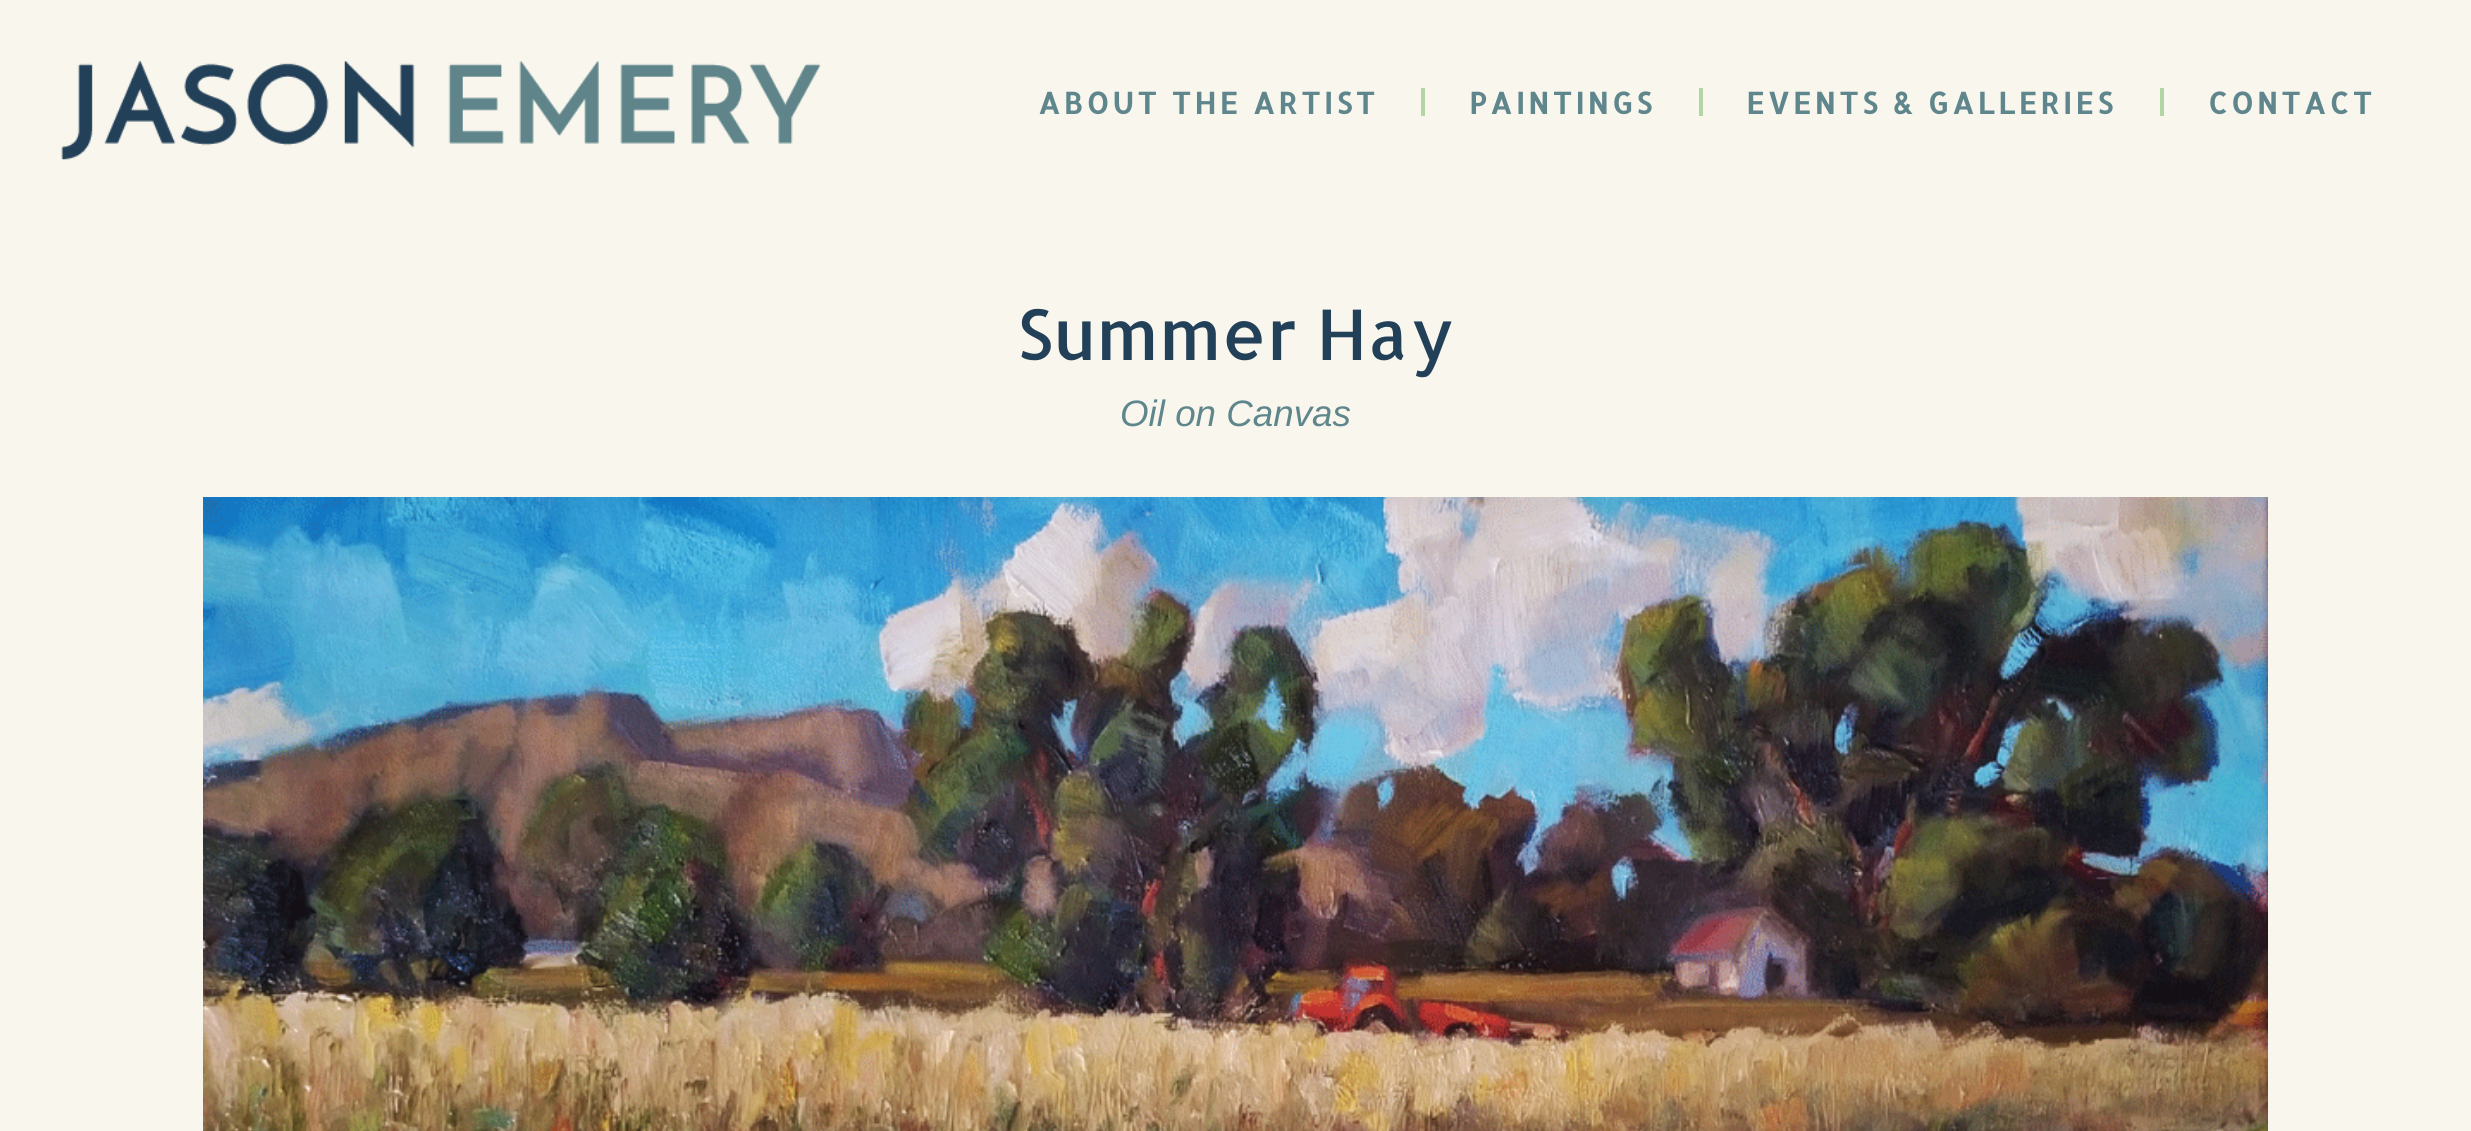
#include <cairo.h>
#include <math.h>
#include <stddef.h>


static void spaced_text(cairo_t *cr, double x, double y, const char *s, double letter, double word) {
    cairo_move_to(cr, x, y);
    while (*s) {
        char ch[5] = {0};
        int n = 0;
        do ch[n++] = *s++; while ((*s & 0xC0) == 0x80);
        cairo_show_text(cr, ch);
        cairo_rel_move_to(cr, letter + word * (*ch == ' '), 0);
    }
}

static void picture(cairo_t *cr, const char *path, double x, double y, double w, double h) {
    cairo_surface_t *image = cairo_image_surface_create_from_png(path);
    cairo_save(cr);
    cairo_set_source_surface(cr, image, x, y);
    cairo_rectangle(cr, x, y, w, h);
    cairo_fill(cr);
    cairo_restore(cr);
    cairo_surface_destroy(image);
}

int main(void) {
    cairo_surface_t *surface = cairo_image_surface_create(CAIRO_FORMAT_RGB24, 2471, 1131);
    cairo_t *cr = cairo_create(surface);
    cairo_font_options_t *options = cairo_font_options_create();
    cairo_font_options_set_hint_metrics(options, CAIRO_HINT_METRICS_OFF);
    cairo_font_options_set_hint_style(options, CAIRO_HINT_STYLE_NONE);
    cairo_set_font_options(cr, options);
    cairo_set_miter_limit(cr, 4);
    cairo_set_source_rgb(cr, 0.973, 0.965, 0.929);
    cairo_paint(cr);
    picture(cr, "img1.png", 61, 61, 760, 99);
    cairo_select_font_face(cr, "Allerta", CAIRO_FONT_SLANT_NORMAL, CAIRO_FONT_WEIGHT_BOLD);
    cairo_set_font_size(cr, 29.75);
    cairo_set_source_rgb(cr, 0.369, 0.525, 0.549);
    spaced_text(cr, 1038, 114, "ABOUT THE ARTIST", 3.5, 0);
    cairo_set_source_rgb(cr, 0.698, 0.835, 0.651);
    cairo_rectangle(cr, 1421, 88, 4, 28);
    cairo_fill(cr);
    cairo_set_source_rgb(cr, 0.369, 0.525, 0.549);
    spaced_text(cr, 1469, 114, "PAINTINGS", 3.5, 0);
    cairo_set_source_rgb(cr, 0.698, 0.835, 0.651);
    cairo_rectangle(cr, 1699, 88, 4, 28);
    cairo_fill(cr);
    cairo_set_source_rgb(cr, 0.369, 0.525, 0.549);
    spaced_text(cr, 1746, 114, "EVENTS & GALLERIES", 3.5, 0);
    cairo_set_source_rgb(cr, 0.698, 0.835, 0.651);
    cairo_rectangle(cr, 2160, 88, 4, 28);
    cairo_fill(cr);
    cairo_set_source_rgb(cr, 0.369, 0.525, 0.549);
    spaced_text(cr, 2208, 114, "CONTACT", 3.5, 0);
    cairo_select_font_face(cr, "Allerta", CAIRO_FONT_SLANT_NORMAL, CAIRO_FONT_WEIGHT_NORMAL);
    cairo_set_font_size(cr, 70);
    cairo_set_source_rgb(cr, 0.137, 0.251, 0.349);
    cairo_move_to(cr, 1016, 360);
    cairo_show_text(cr, "Summer Hay");
    cairo_select_font_face(cr, "Liberation Sans", CAIRO_FONT_SLANT_ITALIC, CAIRO_FONT_WEIGHT_NORMAL);
    cairo_set_font_size(cr, 36.75);
    cairo_set_source_rgb(cr, 0.369, 0.525, 0.549);
    cairo_move_to(cr, 1120, 426);
    cairo_show_text(cr, "Oil on Canvas");
    picture(cr, "img2.png", 203, 497, 2065, 634);
    cairo_surface_write_to_png(surface, "page.png");
    cairo_font_options_destroy(options);
    cairo_destroy(cr);
    cairo_surface_destroy(surface);
    return 0;
}
